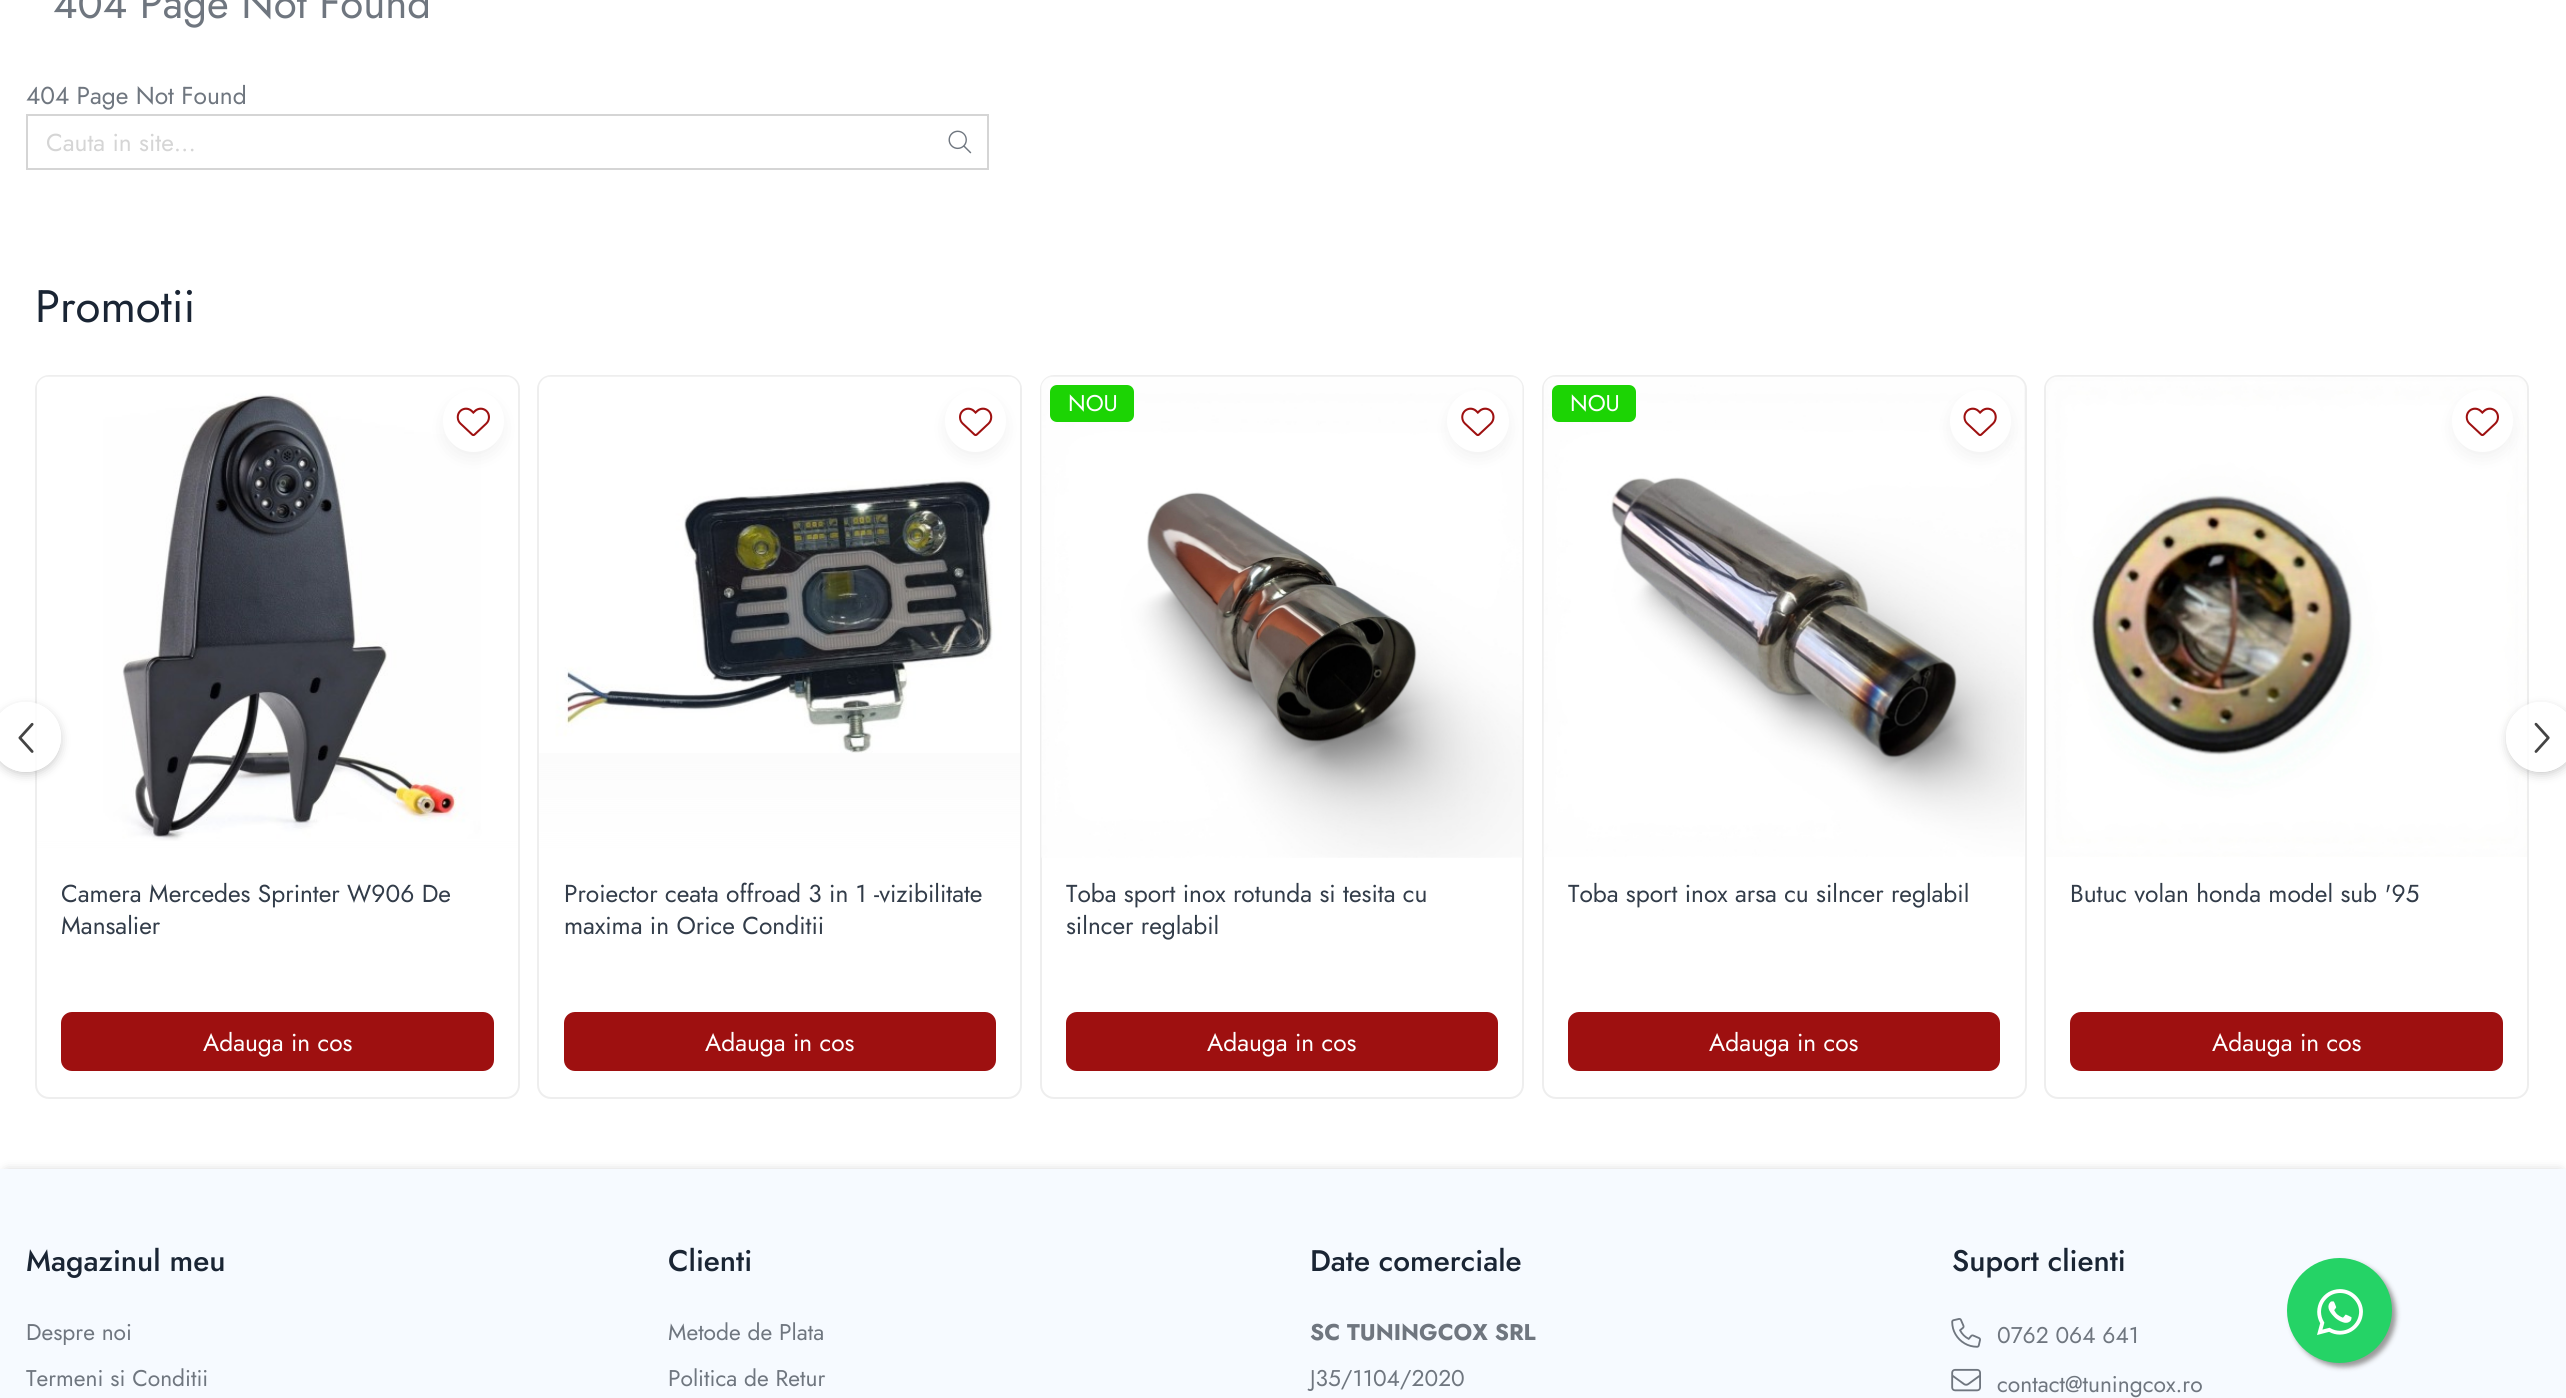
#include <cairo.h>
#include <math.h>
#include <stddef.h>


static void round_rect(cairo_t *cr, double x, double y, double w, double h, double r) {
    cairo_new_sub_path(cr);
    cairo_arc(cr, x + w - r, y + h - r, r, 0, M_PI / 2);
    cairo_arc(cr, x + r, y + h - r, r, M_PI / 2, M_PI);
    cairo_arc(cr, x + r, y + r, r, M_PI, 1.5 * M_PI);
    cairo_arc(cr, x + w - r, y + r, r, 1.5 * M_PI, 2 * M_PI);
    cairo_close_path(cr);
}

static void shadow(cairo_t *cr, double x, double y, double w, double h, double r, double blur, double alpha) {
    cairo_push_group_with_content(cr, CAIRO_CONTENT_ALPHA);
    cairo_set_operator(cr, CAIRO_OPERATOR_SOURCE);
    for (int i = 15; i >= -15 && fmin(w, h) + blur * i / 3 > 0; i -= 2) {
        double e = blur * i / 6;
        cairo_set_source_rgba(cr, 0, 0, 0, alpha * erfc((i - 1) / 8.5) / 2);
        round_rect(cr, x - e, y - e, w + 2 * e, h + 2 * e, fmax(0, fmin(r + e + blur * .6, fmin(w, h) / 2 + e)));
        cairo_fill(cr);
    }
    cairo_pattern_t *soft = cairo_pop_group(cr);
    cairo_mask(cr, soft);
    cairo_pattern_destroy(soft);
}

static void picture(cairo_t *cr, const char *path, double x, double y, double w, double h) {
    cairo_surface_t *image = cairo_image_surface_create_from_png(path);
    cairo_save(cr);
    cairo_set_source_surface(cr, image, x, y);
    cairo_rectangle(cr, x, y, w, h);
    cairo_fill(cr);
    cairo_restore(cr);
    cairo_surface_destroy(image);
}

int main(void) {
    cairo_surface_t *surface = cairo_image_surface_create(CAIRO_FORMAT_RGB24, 2566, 1398);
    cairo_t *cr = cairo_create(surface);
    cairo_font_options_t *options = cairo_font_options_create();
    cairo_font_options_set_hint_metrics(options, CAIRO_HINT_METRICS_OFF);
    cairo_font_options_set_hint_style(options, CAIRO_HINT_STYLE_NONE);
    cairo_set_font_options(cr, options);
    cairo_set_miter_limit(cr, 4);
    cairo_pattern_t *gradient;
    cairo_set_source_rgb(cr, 1, 1, 1);
    cairo_paint(cr);
    cairo_select_font_face(cr, "Jost", CAIRO_FONT_SLANT_NORMAL, CAIRO_FONT_WEIGHT_NORMAL);
    cairo_set_font_size(cr, 42);
    cairo_set_source_rgb(cr, 0.435, 0.463, 0.498);
    cairo_move_to(cr, 53, 18);
    cairo_show_text(cr, "404 Page Not Found");
    cairo_set_font_size(cr, 24.5);
    cairo_move_to(cr, 26, 104);
    cairo_show_text(cr, "404 Page Not Found");
    cairo_rectangle(cr, 27, 115, 961, 54);
    cairo_set_source_rgb(cr, 0.835, 0.835, 0.835);
    cairo_stroke(cr);
    cairo_move_to(cr, 46, 151);
    cairo_show_text(cr, "Cauta in site...");
    picture(cr, "img1.png", 948, 130, 24, 24);
    cairo_set_font_size(cr, 45.5);
    cairo_set_source_rgb(cr, 0.102, 0.145, 0.204);
    cairo_move_to(cr, 35, 322);
    cairo_show_text(cr, "Promotii");
    round_rect(cr, 36, 376, 483, 722, 13);
    cairo_set_source_rgb(cr, 0.933, 0.933, 0.933);
    cairo_stroke(cr);
    gradient = cairo_pattern_create_linear(277, 376, 277, 858);
    cairo_pattern_add_color_stop_rgba(gradient, 0, 0.949, 0.949, 0.949, 1);
    cairo_pattern_add_color_stop_rgba(gradient, 1, 0.949, 0.949, 0.949, 0);
    cairo_set_source(cr, gradient);
    cairo_pattern_destroy(gradient);
    cairo_new_path(cr);
    cairo_move_to(cr, 49, 376);
    cairo_line_to(cr, 506, 376);
    cairo_curve_to(cr, 512.5, 376, 518, 381.5, 518, 388);
    cairo_line_to(cr, 518, 858);
    cairo_line_to(cr, 37, 858);
    cairo_line_to(cr, 37, 388);
    cairo_curve_to(cr, 37, 381.5, 42.5, 376, 49, 376);
    cairo_close_path(cr);
    cairo_fill(cr);
    picture(cr, "img2.png", 37, 377, 481, 464);
    cairo_set_font_size(cr, 24.5);
    cairo_set_source_rgb(cr, 0.196, 0.235, 0.286);
    cairo_move_to(cr, 61, 902);
    cairo_show_text(cr, "Camera Mercedes Sprinter W906 De");
    cairo_move_to(cr, 61, 934);
    cairo_show_text(cr, "Mansalier");
    cairo_set_source_rgb(cr, 0, 0, 0);
    shadow(cr, 448, 403, 51, 50, 25, 10.5, 0.08);
    cairo_set_source_rgb(cr, 1, 1, 1);
    round_rect(cr, 443, 390, 61, 62, 30.5);
    cairo_fill(cr);
    picture(cr, "img3.png", 456, 407, 34, 30);
    cairo_set_source_rgb(cr, 0.62, 0.063, 0.063);
    round_rect(cr, 62, 1013, 431, 57, 10);
    cairo_fill_preserve(cr);
    cairo_stroke(cr);
    cairo_set_source_rgb(cr, 1, 1, 1);
    cairo_move_to(cr, 203, 1051);
    cairo_show_text(cr, "Adauga in cos");
    round_rect(cr, 538, 376, 483, 722, 13);
    cairo_set_source_rgb(cr, 0.933, 0.933, 0.933);
    cairo_stroke(cr);
    gradient = cairo_pattern_create_linear(780, 376, 780, 858);
    cairo_pattern_add_color_stop_rgba(gradient, 0, 0.949, 0.949, 0.949, 1);
    cairo_pattern_add_color_stop_rgba(gradient, 1, 0.949, 0.949, 0.949, 0);
    cairo_set_source(cr, gradient);
    cairo_pattern_destroy(gradient);
    cairo_new_path(cr);
    cairo_move_to(cr, 551, 376);
    cairo_line_to(cr, 1008, 376);
    cairo_curve_to(cr, 1014.5, 376, 1020, 381.5, 1020, 388);
    cairo_line_to(cr, 1020, 858);
    cairo_line_to(cr, 539, 858);
    cairo_line_to(cr, 539, 388);
    cairo_curve_to(cr, 539, 381.5, 544.5, 376, 551, 376);
    cairo_close_path(cr);
    cairo_fill(cr);
    picture(cr, "img4.png", 539, 377, 481, 376);
    cairo_set_source_rgb(cr, 0.196, 0.235, 0.286);
    cairo_move_to(cr, 564, 902);
    cairo_show_text(cr, "Proiector ceata offroad 3 in 1 -vizibilitate");
    cairo_move_to(cr, 564, 934);
    cairo_show_text(cr, "maxima in Orice Conditii");
    cairo_set_source_rgb(cr, 0, 0, 0);
    shadow(cr, 950, 403, 51, 50, 25, 10.5, 0.08);
    cairo_set_source_rgb(cr, 1, 1, 1);
    round_rect(cr, 945, 390, 61, 62, 30.5);
    cairo_fill(cr);
    picture(cr, "img5.png", 959, 407, 34, 30);
    cairo_set_source_rgb(cr, 0.62, 0.063, 0.063);
    round_rect(cr, 565, 1013, 430, 57, 10);
    cairo_fill_preserve(cr);
    cairo_stroke(cr);
    cairo_set_source_rgb(cr, 1, 1, 1);
    cairo_move_to(cr, 705, 1051);
    cairo_show_text(cr, "Adauga in cos");
    round_rect(cr, 1041, 376, 482, 722, 13);
    cairo_set_source_rgb(cr, 0.933, 0.933, 0.933);
    cairo_stroke(cr);
    gradient = cairo_pattern_create_linear(1282, 376, 1282, 858);
    cairo_pattern_add_color_stop_rgba(gradient, 0, 0.949, 0.949, 0.949, 1);
    cairo_pattern_add_color_stop_rgba(gradient, 1, 0.949, 0.949, 0.949, 0);
    cairo_set_source(cr, gradient);
    cairo_pattern_destroy(gradient);
    cairo_new_path(cr);
    cairo_move_to(cr, 1053, 376);
    cairo_line_to(cr, 1511, 376);
    cairo_curve_to(cr, 1517.5, 376, 1523, 381.5, 1523, 388);
    cairo_line_to(cr, 1523, 858);
    cairo_line_to(cr, 1041, 858);
    cairo_line_to(cr, 1041, 388);
    cairo_curve_to(cr, 1041, 381.5, 1046.5, 376, 1053, 376);
    cairo_close_path(cr);
    cairo_fill(cr);
    picture(cr, "img6.png", 1041, 377, 482, 481);
    cairo_set_source_rgb(cr, 0.11, 0.831, 0.016);
    round_rect(cr, 1050, 385, 84, 37, 7);
    cairo_fill(cr);
    cairo_set_font_size(cr, 22.75);
    cairo_set_source_rgb(cr, 1, 1, 1);
    cairo_move_to(cr, 1068, 411);
    cairo_show_text(cr, "NOU");
    cairo_set_font_size(cr, 24.5);
    cairo_set_source_rgb(cr, 0.196, 0.235, 0.286);
    cairo_move_to(cr, 1066, 902);
    cairo_show_text(cr, "Toba sport inox rotunda si tesita cu");
    cairo_move_to(cr, 1066, 934);
    cairo_show_text(cr, "silncer reglabil");
    cairo_set_source_rgb(cr, 0, 0, 0);
    shadow(cr, 1453, 403, 50, 50, 25, 10.5, 0.08);
    cairo_set_source_rgb(cr, 1, 1, 1);
    cairo_arc(cr, 1478, 421, 31, 0, 2 * M_PI);
    cairo_fill(cr);
    picture(cr, "img7.png", 1461, 407, 34, 30);
    cairo_set_source_rgb(cr, 0.62, 0.063, 0.063);
    round_rect(cr, 1067, 1013, 430, 57, 10);
    cairo_fill_preserve(cr);
    cairo_stroke(cr);
    cairo_set_source_rgb(cr, 1, 1, 1);
    cairo_move_to(cr, 1207, 1051);
    cairo_show_text(cr, "Adauga in cos");
    round_rect(cr, 1543, 376, 483, 722, 13);
    cairo_set_source_rgb(cr, 0.933, 0.933, 0.933);
    cairo_stroke(cr);
    gradient = cairo_pattern_create_linear(1784, 376, 1784, 858);
    cairo_pattern_add_color_stop_rgba(gradient, 0, 0.949, 0.949, 0.949, 1);
    cairo_pattern_add_color_stop_rgba(gradient, 1, 0.949, 0.949, 0.949, 0);
    cairo_set_source(cr, gradient);
    cairo_pattern_destroy(gradient);
    cairo_new_path(cr);
    cairo_move_to(cr, 1556, 376);
    cairo_line_to(cr, 2013, 376);
    cairo_curve_to(cr, 2019.5, 376, 2025, 381.5, 2025, 388);
    cairo_line_to(cr, 2025, 858);
    cairo_line_to(cr, 1544, 858);
    cairo_line_to(cr, 1544, 388);
    cairo_curve_to(cr, 1544, 381.5, 1549.5, 376, 1556, 376);
    cairo_close_path(cr);
    cairo_fill(cr);
    picture(cr, "img8.png", 1543, 377, 482, 480);
    cairo_set_source_rgb(cr, 0.11, 0.831, 0.016);
    round_rect(cr, 1552, 385, 84, 37, 7);
    cairo_fill(cr);
    cairo_set_font_size(cr, 22.75);
    cairo_set_source_rgb(cr, 1, 1, 1);
    cairo_move_to(cr, 1570, 411);
    cairo_show_text(cr, "NOU");
    cairo_set_font_size(cr, 24.5);
    cairo_set_source_rgb(cr, 0.196, 0.235, 0.286);
    cairo_move_to(cr, 1568, 902);
    cairo_show_text(cr, "Toba sport inox arsa cu silncer reglabil");
    cairo_set_source_rgb(cr, 0, 0, 0);
    shadow(cr, 1955, 403, 51, 50, 25, 10.5, 0.08);
    cairo_set_source_rgb(cr, 1, 1, 1);
    round_rect(cr, 1950, 390, 61, 62, 30.5);
    cairo_fill(cr);
    picture(cr, "img9.png", 1963, 407, 34, 30);
    cairo_set_source_rgb(cr, 0.62, 0.063, 0.063);
    round_rect(cr, 1569, 1013, 430, 57, 10);
    cairo_fill_preserve(cr);
    cairo_stroke(cr);
    cairo_set_source_rgb(cr, 1, 1, 1);
    cairo_move_to(cr, 1709, 1051);
    cairo_show_text(cr, "Adauga in cos");
    round_rect(cr, 2045, 376, 483, 722, 13);
    cairo_set_source_rgb(cr, 0.933, 0.933, 0.933);
    cairo_stroke(cr);
    gradient = cairo_pattern_create_linear(2286, 376, 2286, 858);
    cairo_pattern_add_color_stop_rgba(gradient, 0, 0.949, 0.949, 0.949, 1);
    cairo_pattern_add_color_stop_rgba(gradient, 1, 0.949, 0.949, 0.949, 0);
    cairo_set_source(cr, gradient);
    cairo_pattern_destroy(gradient);
    cairo_new_path(cr);
    cairo_move_to(cr, 2058, 376);
    cairo_line_to(cr, 2515, 376);
    cairo_curve_to(cr, 2521.5, 376, 2527, 381.5, 2527, 388);
    cairo_line_to(cr, 2527, 858);
    cairo_line_to(cr, 2046, 858);
    cairo_line_to(cr, 2046, 388);
    cairo_curve_to(cr, 2046, 381.5, 2051.5, 376, 2058, 376);
    cairo_close_path(cr);
    cairo_fill(cr);
    picture(cr, "img10.png", 2046, 377, 481, 480);
    cairo_set_source_rgb(cr, 0.196, 0.235, 0.286);
    cairo_move_to(cr, 2070, 902);
    cairo_show_text(cr, "Butuc volan honda model sub '95");
    cairo_set_source_rgb(cr, 0, 0, 0);
    shadow(cr, 2457, 403, 51, 50, 25, 10.5, 0.08);
    cairo_set_source_rgb(cr, 1, 1, 1);
    round_rect(cr, 2452, 390, 61, 62, 30.5);
    cairo_fill(cr);
    picture(cr, "img3.png", 2465, 407, 34, 30);
    cairo_set_source_rgb(cr, 0.62, 0.063, 0.063);
    round_rect(cr, 2071, 1013, 431, 57, 10);
    cairo_fill_preserve(cr);
    cairo_stroke(cr);
    cairo_set_source_rgb(cr, 1, 1, 1);
    cairo_move_to(cr, 2212, 1051);
    cairo_show_text(cr, "Adauga in cos");
    cairo_save(cr);
    cairo_set_fill_rule(cr, CAIRO_FILL_RULE_EVEN_ODD);
    cairo_new_path(cr);
    cairo_move_to(cr, 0, 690);
    cairo_line_to(cr, 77, 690);
    cairo_line_to(cr, 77, 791);
    cairo_line_to(cr, 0, 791);
    cairo_close_path(cr);
    cairo_move_to(cr, 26, 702);
    cairo_curve_to(cr, 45.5, 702, 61, 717.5, 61, 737);
    cairo_curve_to(cr, 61, 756.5, 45.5, 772, 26, 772);
    cairo_curve_to(cr, 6.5, 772, -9, 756.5, -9, 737);
    cairo_curve_to(cr, -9, 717.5, 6.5, 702, 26, 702);
    cairo_close_path(cr);
    cairo_clip(cr);
    cairo_set_source_rgb(cr, 0, 0, 0);
    shadow(cr, -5, 709, 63, 63, 31.5, 6, 0.3);
    cairo_restore(cr);
    cairo_set_source_rgba(cr, 1, 1, 1, 0.85);
    cairo_arc(cr, 26, 737, 35, 0, 2 * M_PI);
    cairo_fill(cr);
    picture(cr, "img11.png", 18, 722, 16, 31);
    cairo_save(cr);
    cairo_set_fill_rule(cr, CAIRO_FILL_RULE_EVEN_ODD);
    cairo_new_path(cr);
    cairo_move_to(cr, 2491, 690);
    cairo_line_to(cr, 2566, 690);
    cairo_line_to(cr, 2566, 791);
    cairo_line_to(cr, 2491, 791);
    cairo_close_path(cr);
    cairo_move_to(cr, 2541, 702);
    cairo_curve_to(cr, 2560.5, 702, 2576, 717.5, 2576, 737);
    cairo_curve_to(cr, 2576, 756.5, 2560.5, 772, 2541, 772);
    cairo_curve_to(cr, 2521.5, 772, 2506, 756.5, 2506, 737);
    cairo_curve_to(cr, 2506, 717.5, 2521.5, 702, 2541, 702);
    cairo_close_path(cr);
    cairo_clip(cr);
    cairo_set_source_rgb(cr, 0, 0, 0);
    shadow(cr, 2510, 709, 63, 63, 31.5, 6, 0.3);
    cairo_restore(cr);
    cairo_arc(cr, 2541, 737, 35, 0, 2 * M_PI);
    cairo_fill(cr);
    picture(cr, "img12.png", 2534, 722, 16, 31);
    cairo_set_source_rgb(cr, 0, 0, 0);
    shadow(cr, 7, 1173, 2553, 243, 0, 6, 0.3);
    cairo_set_source_rgb(cr, 0.961, 0.98, 1);
    cairo_rectangle(cr, 0, 1169, 2566, 229);
    cairo_fill(cr);
    cairo_select_font_face(cr, "Jost Medium", CAIRO_FONT_SLANT_NORMAL, CAIRO_FONT_WEIGHT_NORMAL);
    cairo_set_font_size(cr, 29.75);
    cairo_set_source_rgb(cr, 0.102, 0.145, 0.204);
    cairo_move_to(cr, 26, 1271);
    cairo_show_text(cr, "Magazinul meu");
    cairo_select_font_face(cr, "Jost", CAIRO_FONT_SLANT_NORMAL, CAIRO_FONT_WEIGHT_NORMAL);
    cairo_set_font_size(cr, 22.75);
    cairo_set_source_rgb(cr, 0.435, 0.463, 0.498);
    cairo_move_to(cr, 26, 1340);
    cairo_show_text(cr, "Despre noi");
    cairo_move_to(cr, 26, 1386);
    cairo_show_text(cr, "Termeni si Conditii");
    cairo_select_font_face(cr, "Jost Medium", CAIRO_FONT_SLANT_NORMAL, CAIRO_FONT_WEIGHT_NORMAL);
    cairo_set_font_size(cr, 29.75);
    cairo_set_source_rgb(cr, 0.102, 0.145, 0.204);
    cairo_move_to(cr, 668, 1271);
    cairo_show_text(cr, "Clienti");
    cairo_select_font_face(cr, "Jost", CAIRO_FONT_SLANT_NORMAL, CAIRO_FONT_WEIGHT_NORMAL);
    cairo_set_font_size(cr, 22.75);
    cairo_set_source_rgb(cr, 0.435, 0.463, 0.498);
    cairo_move_to(cr, 668, 1340);
    cairo_show_text(cr, "Metode de Plata");
    cairo_move_to(cr, 668, 1386);
    cairo_show_text(cr, "Politica de Retur");
    cairo_select_font_face(cr, "Jost Medium", CAIRO_FONT_SLANT_NORMAL, CAIRO_FONT_WEIGHT_NORMAL);
    cairo_set_font_size(cr, 29.75);
    cairo_set_source_rgb(cr, 0.102, 0.145, 0.204);
    cairo_move_to(cr, 1310, 1271);
    cairo_show_text(cr, "Date comerciale");
    cairo_select_font_face(cr, "Jost", CAIRO_FONT_SLANT_NORMAL, CAIRO_FONT_WEIGHT_BOLD);
    cairo_set_font_size(cr, 22.75);
    cairo_set_source_rgb(cr, 0.435, 0.463, 0.498);
    cairo_move_to(cr, 1310, 1340);
    cairo_show_text(cr, "SC TUNINGCOX SRL");
    cairo_select_font_face(cr, "Jost", CAIRO_FONT_SLANT_NORMAL, CAIRO_FONT_WEIGHT_NORMAL);
    cairo_move_to(cr, 1310, 1386);
    cairo_show_text(cr, "J35/1104/2020");
    cairo_select_font_face(cr, "Jost Medium", CAIRO_FONT_SLANT_NORMAL, CAIRO_FONT_WEIGHT_NORMAL);
    cairo_set_font_size(cr, 29.75);
    cairo_set_source_rgb(cr, 0.102, 0.145, 0.204);
    cairo_move_to(cr, 1952, 1271);
    cairo_show_text(cr, "Suport clienti");
    picture(cr, "img13.png", 1951, 1318, 30, 30);
    cairo_select_font_face(cr, "Jost", CAIRO_FONT_SLANT_NORMAL, CAIRO_FONT_WEIGHT_NORMAL);
    cairo_set_font_size(cr, 22.75);
    cairo_set_source_rgb(cr, 0.435, 0.463, 0.498);
    cairo_move_to(cr, 1997, 1343);
    cairo_show_text(cr, "0762 064 641");
    picture(cr, "img14.png", 1951, 1368, 30, 24);
    cairo_move_to(cr, 1997, 1392);
    cairo_show_text(cr, "contact@tuningcox.ro");
    cairo_set_source_rgb(cr, 0.6, 0.6, 0.6);
    shadow(cr, 2291, 1262, 105, 105, 52.5, 2.5, 1);
    cairo_set_source_rgb(cr, 0.145, 0.827, 0.4);
    cairo_arc(cr, 2339.5, 1310.5, 52.5, 0, 2 * M_PI);
    cairo_fill(cr);
    picture(cr, "img15.png", 2317, 1289, 46, 46);
    cairo_surface_write_to_png(surface, "page.png");
    cairo_font_options_destroy(options);
    cairo_destroy(cr);
    cairo_surface_destroy(surface);
    return 0;
}
